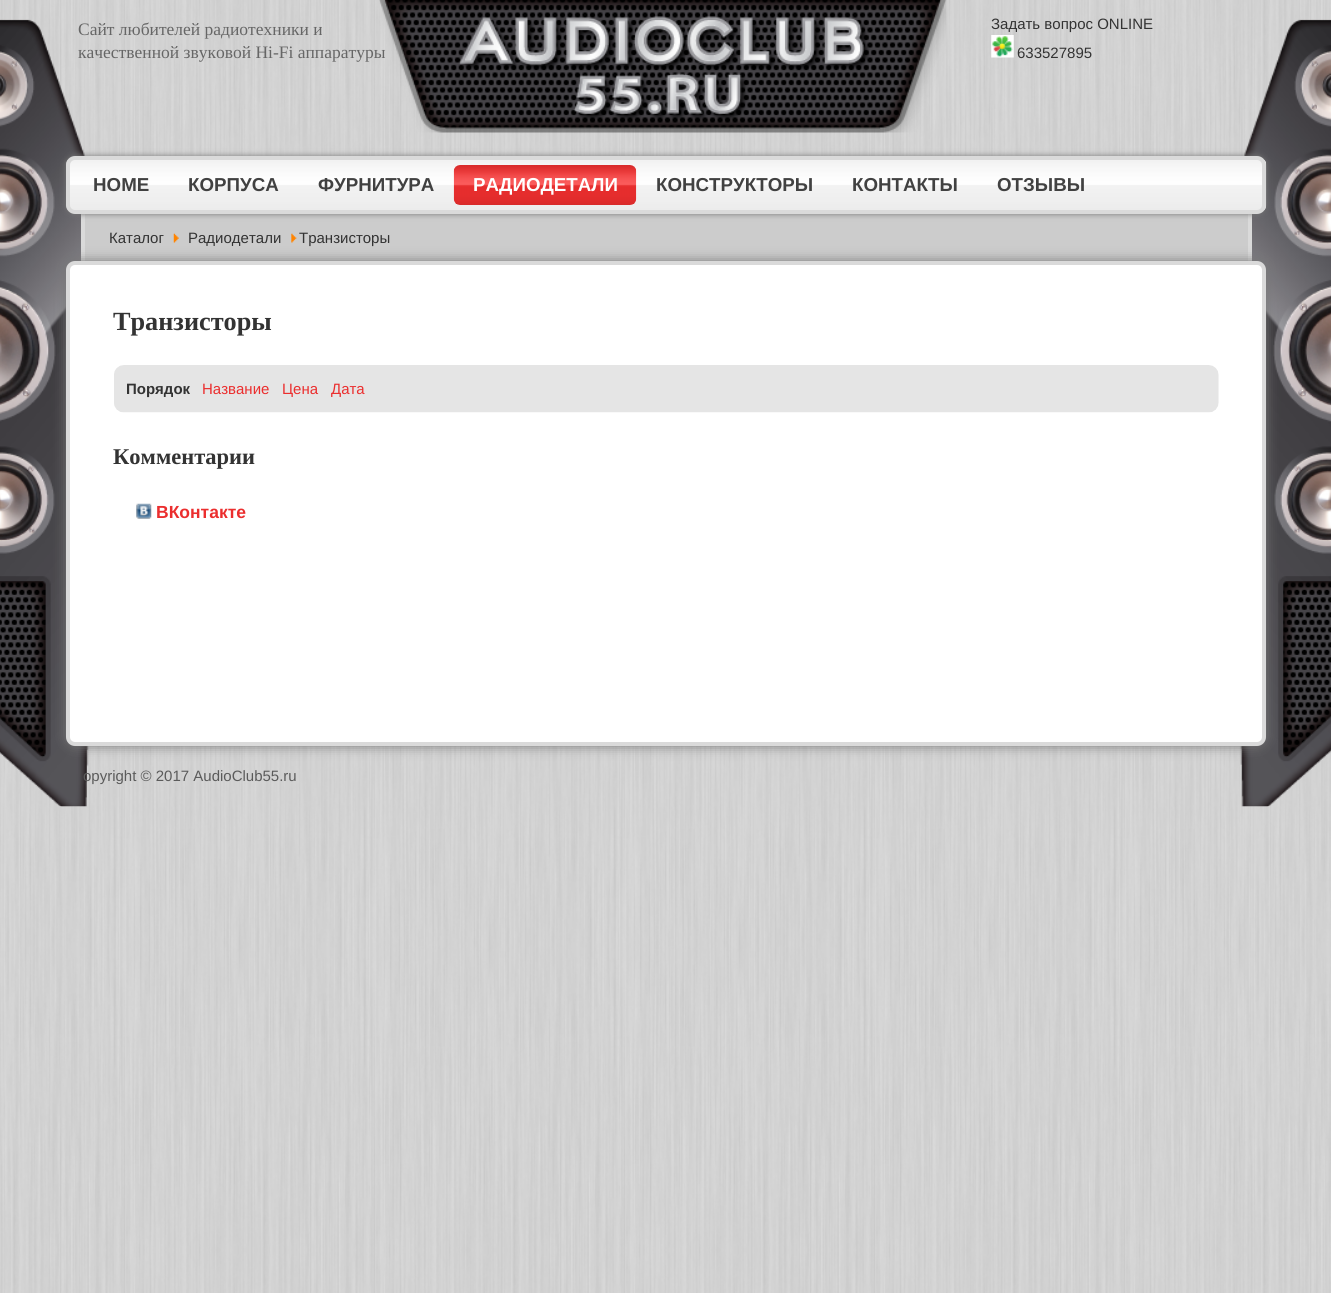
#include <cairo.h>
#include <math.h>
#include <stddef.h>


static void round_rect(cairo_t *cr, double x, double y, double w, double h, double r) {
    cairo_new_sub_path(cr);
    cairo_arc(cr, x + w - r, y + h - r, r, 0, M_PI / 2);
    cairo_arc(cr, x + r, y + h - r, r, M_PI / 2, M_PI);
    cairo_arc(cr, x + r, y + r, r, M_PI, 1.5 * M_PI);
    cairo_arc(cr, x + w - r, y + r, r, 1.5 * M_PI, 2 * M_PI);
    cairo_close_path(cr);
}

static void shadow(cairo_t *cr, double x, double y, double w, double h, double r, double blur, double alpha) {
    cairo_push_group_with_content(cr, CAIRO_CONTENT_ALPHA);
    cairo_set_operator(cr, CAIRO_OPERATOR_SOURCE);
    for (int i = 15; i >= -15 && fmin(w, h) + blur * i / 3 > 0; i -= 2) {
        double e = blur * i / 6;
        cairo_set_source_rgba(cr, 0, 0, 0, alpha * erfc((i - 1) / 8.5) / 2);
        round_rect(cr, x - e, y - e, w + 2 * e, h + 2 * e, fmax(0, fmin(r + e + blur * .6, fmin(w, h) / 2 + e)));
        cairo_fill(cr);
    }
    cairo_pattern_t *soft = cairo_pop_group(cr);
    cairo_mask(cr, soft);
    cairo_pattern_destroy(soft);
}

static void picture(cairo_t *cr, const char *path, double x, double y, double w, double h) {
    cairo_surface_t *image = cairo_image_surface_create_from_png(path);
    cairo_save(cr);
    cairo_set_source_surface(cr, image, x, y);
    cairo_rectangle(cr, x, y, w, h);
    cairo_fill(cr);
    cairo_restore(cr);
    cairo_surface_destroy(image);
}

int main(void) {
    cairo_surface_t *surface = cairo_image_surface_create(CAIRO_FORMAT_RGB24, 1331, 1293);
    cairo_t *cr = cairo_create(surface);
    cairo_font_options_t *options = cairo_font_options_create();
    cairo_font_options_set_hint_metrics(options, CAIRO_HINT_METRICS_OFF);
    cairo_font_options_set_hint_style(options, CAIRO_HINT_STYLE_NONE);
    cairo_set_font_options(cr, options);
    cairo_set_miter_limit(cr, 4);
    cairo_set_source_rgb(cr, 1, 1, 1);
    cairo_paint(cr);
    picture(cr, "img1.png", 0, 0, 1331, 1293);
    picture(cr, "img2.png", 0, 19, 1331, 788);
    cairo_select_font_face(cr, "Liberation Serif", CAIRO_FONT_SLANT_NORMAL, CAIRO_FONT_WEIGHT_NORMAL);
    cairo_set_font_size(cr, 17.5);
    cairo_set_source_rgb(cr, 0.4, 0.4, 0.4);
    cairo_move_to(cr, 78, 35);
    cairo_show_text(cr, "Сайт любителей радиотехники и");
    cairo_move_to(cr, 78, 58);
    cairo_show_text(cr, "качественной звуковой Hi-Fi аппаратуры");
    picture(cr, "img3.png", 379, 0, 568, 133);
    cairo_select_font_face(cr, "Liberation Sans", CAIRO_FONT_SLANT_NORMAL, CAIRO_FONT_WEIGHT_NORMAL);
    cairo_set_font_size(cr, 15);
    cairo_set_source_rgb(cr, 0.2, 0.2, 0.2);
    cairo_move_to(cr, 991, 29);
    cairo_show_text(cr, "Задать вопрос ONLINE");
    picture(cr, "img4.png", 991, 35, 23, 23);
    cairo_move_to(cr, 1017, 58);
    cairo_show_text(cr, "633527895");
    cairo_set_source_rgb(cr, 0.8, 0.8, 0.8);
    cairo_rectangle(cr, 85, 214, 1163, 47);
    cairo_fill(cr);
    cairo_set_source_rgb(cr, 0.855, 0.855, 0.855);
    cairo_rectangle(cr, 1248, 214, 4, 47);
    cairo_fill(cr);
    cairo_rectangle(cr, 81, 214, 4, 47);
    cairo_fill(cr);
    cairo_set_source_rgb(cr, 0.467, 0.467, 0.467);
    shadow(cr, 66, 156, 1200, 58, 9, 3, 1);
    picture(cr, "img5.png", 66, 160, 1201, 50);
    round_rect(cr, 68, 158, 1196, 54, 7);
    cairo_set_source_rgb(cr, 0.855, 0.855, 0.855);
    cairo_set_line_width(cr, 4);
    cairo_stroke(cr);
    cairo_select_font_face(cr, "Liberation Sans", CAIRO_FONT_SLANT_NORMAL, CAIRO_FONT_WEIGHT_BOLD);
    cairo_set_font_size(cr, 18.75);
    cairo_set_source_rgb(cr, 0.255, 0.255, 0.255);
    cairo_move_to(cr, 93, 191);
    cairo_show_text(cr, "HOME");
    cairo_move_to(cr, 188, 191);
    cairo_show_text(cr, "КОРПУСА");
    cairo_move_to(cr, 318, 191);
    cairo_show_text(cr, "ФУРНИТУРА");
    picture(cr, "img6.png", 453, 165, 184, 40);
    cairo_set_source_rgb(cr, 1, 1, 1);
    cairo_move_to(cr, 473, 191);
    cairo_show_text(cr, "РАДИОДЕТАЛИ");
    cairo_set_source_rgb(cr, 0.255, 0.255, 0.255);
    cairo_move_to(cr, 656, 191);
    cairo_show_text(cr, "КОНСТРУКТОРЫ");
    cairo_move_to(cr, 852, 191);
    cairo_show_text(cr, "КОНТАКТЫ");
    cairo_move_to(cr, 997, 191);
    cairo_show_text(cr, "ОТЗЫВЫ");
    cairo_select_font_face(cr, "Liberation Sans", CAIRO_FONT_SLANT_NORMAL, CAIRO_FONT_WEIGHT_NORMAL);
    cairo_set_font_size(cr, 15);
    cairo_set_source_rgb(cr, 0.2, 0.2, 0.2);
    cairo_move_to(cr, 109, 243);
    cairo_show_text(cr, "Каталог");
    picture(cr, "img7.png", 173, 233, 6, 10);
    cairo_move_to(cr, 188, 243);
    cairo_show_text(cr, "Радиодетали");
    picture(cr, "img8.png", 291, 233, 6, 10);
    cairo_move_to(cr, 299, 243);
    cairo_show_text(cr, "Транзисторы");
    cairo_set_source_rgb(cr, 0.467, 0.467, 0.467);
    shadow(cr, 66, 261, 1200, 485, 9, 6, 1);
    cairo_set_source_rgb(cr, 1, 1, 1);
    round_rect(cr, 68, 263, 1196, 481, 7);
    cairo_fill_preserve(cr);
    cairo_set_source_rgb(cr, 0.855, 0.855, 0.855);
    cairo_stroke(cr);
    cairo_select_font_face(cr, "Liberation Serif", CAIRO_FONT_SLANT_NORMAL, CAIRO_FONT_WEIGHT_BOLD);
    cairo_set_font_size(cr, 26.25);
    cairo_set_source_rgb(cr, 0.2, 0.2, 0.2);
    cairo_move_to(cr, 113, 330);
    cairo_show_text(cr, "Транзисторы");
    picture(cr, "img9.png", 114, 365, 1105, 48);
    cairo_select_font_face(cr, "Liberation Sans", CAIRO_FONT_SLANT_NORMAL, CAIRO_FONT_WEIGHT_BOLD);
    cairo_set_font_size(cr, 15);
    cairo_move_to(cr, 126, 394);
    cairo_show_text(cr, "Порядок");
    cairo_select_font_face(cr, "Liberation Sans", CAIRO_FONT_SLANT_NORMAL, CAIRO_FONT_WEIGHT_NORMAL);
    cairo_set_source_rgb(cr, 0.918, 0.18, 0.18);
    cairo_move_to(cr, 202, 394);
    cairo_show_text(cr, "Название");
    cairo_move_to(cr, 282, 394);
    cairo_show_text(cr, "Цена");
    cairo_move_to(cr, 331, 394);
    cairo_show_text(cr, "Дата");
    cairo_select_font_face(cr, "Liberation Serif", CAIRO_FONT_SLANT_NORMAL, CAIRO_FONT_WEIGHT_BOLD);
    cairo_set_font_size(cr, 22.5);
    cairo_set_source_rgb(cr, 0.2, 0.2, 0.2);
    cairo_move_to(cr, 113, 464);
    cairo_show_text(cr, "Комментарии");
    picture(cr, "img10.png", 136, 503, 16, 16);
    cairo_select_font_face(cr, "Liberation Sans", CAIRO_FONT_SLANT_NORMAL, CAIRO_FONT_WEIGHT_BOLD);
    cairo_set_font_size(cr, 17.5);
    cairo_set_source_rgb(cr, 0.918, 0.18, 0.18);
    cairo_move_to(cr, 156, 518);
    cairo_show_text(cr, "ВКонтакте");
    cairo_select_font_face(cr, "Liberation Sans", CAIRO_FONT_SLANT_NORMAL, CAIRO_FONT_WEIGHT_NORMAL);
    cairo_set_font_size(cr, 15);
    cairo_set_source_rgb(cr, 0.357, 0.357, 0.357);
    cairo_move_to(cr, 83, 781);
    cairo_show_text(cr, "opyright © 2017 AudioClub55.ru");
    cairo_surface_write_to_png(surface, "page.png");
    cairo_font_options_destroy(options);
    cairo_destroy(cr);
    cairo_surface_destroy(surface);
    return 0;
}
